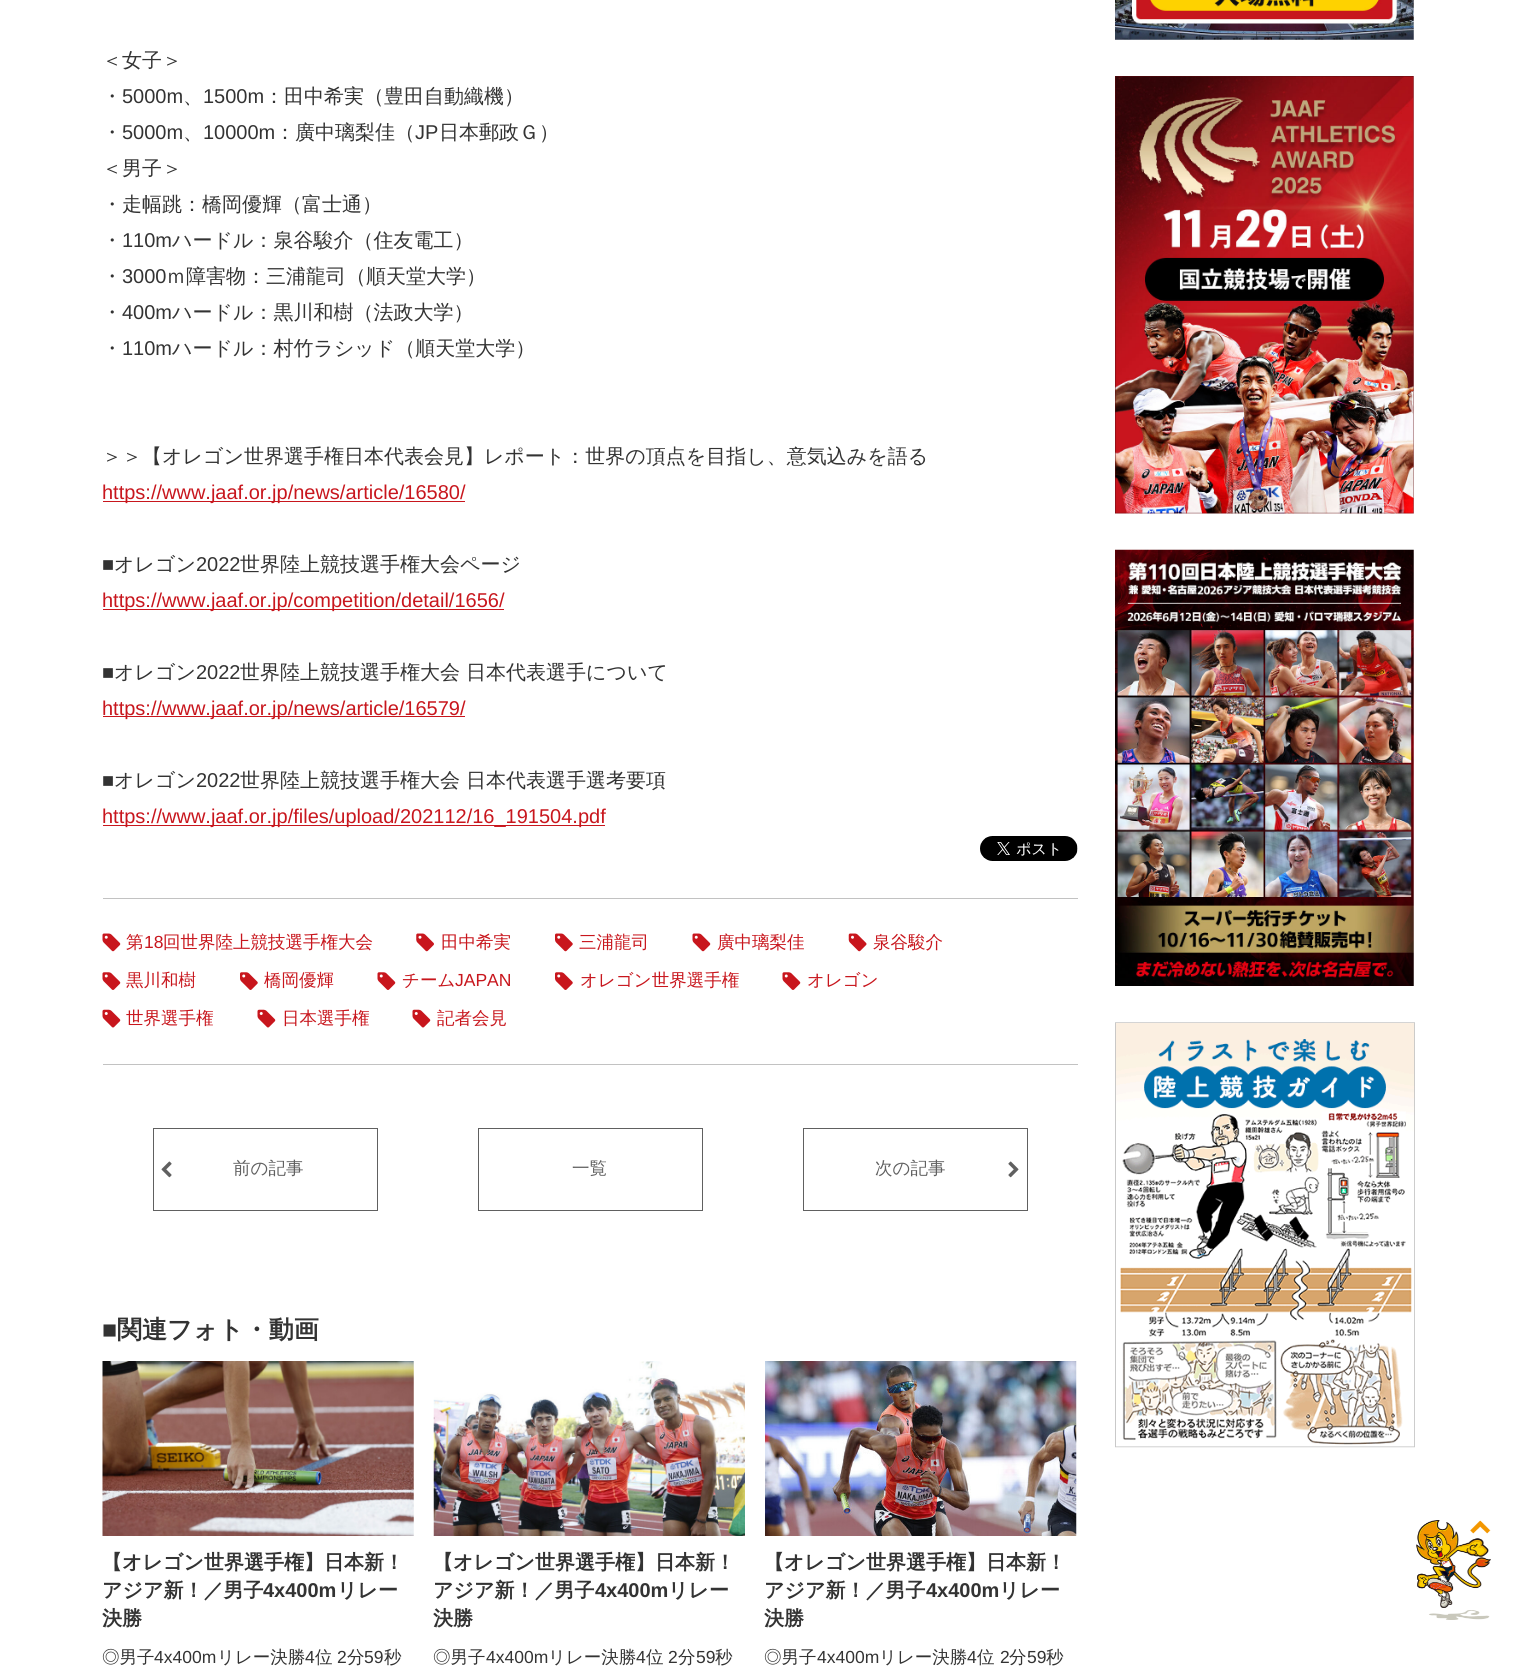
#include <cairo.h>
#include <math.h>
#include <stddef.h>


static void picture(cairo_t *cr, const char *path, double x, double y, double w, double h) {
    cairo_surface_t *image = cairo_image_surface_create_from_png(path);
    cairo_save(cr);
    cairo_set_source_surface(cr, image, x, y);
    cairo_rectangle(cr, x, y, w, h);
    cairo_fill(cr);
    cairo_restore(cr);
    cairo_surface_destroy(image);
}

int main(void) {
    cairo_surface_t *surface = cairo_image_surface_create(CAIRO_FORMAT_RGB24, 1516, 1674);
    cairo_t *cr = cairo_create(surface);
    cairo_font_options_t *options = cairo_font_options_create();
    cairo_font_options_set_hint_metrics(options, CAIRO_HINT_METRICS_OFF);
    cairo_font_options_set_hint_style(options, CAIRO_HINT_STYLE_NONE);
    cairo_set_font_options(cr, options);
    cairo_set_miter_limit(cr, 4);
    cairo_set_source_rgb(cr, 1, 1, 1);
    cairo_paint(cr);
    cairo_select_font_face(cr, "WenQuanYi Zen Hei Medium", CAIRO_FONT_SLANT_NORMAL, CAIRO_FONT_WEIGHT_NORMAL);
    cairo_set_font_size(cr, 20);
    cairo_set_source_rgb(cr, 0.2, 0.2, 0.2);
    cairo_move_to(cr, 102, 67);
    cairo_show_text(cr, "＜女子＞");
    cairo_move_to(cr, 102, 103);
    cairo_show_text(cr, "・");
    cairo_select_font_face(cr, "Liberation Sans", CAIRO_FONT_SLANT_NORMAL, CAIRO_FONT_WEIGHT_NORMAL);
    cairo_move_to(cr, 122, 103);
    cairo_show_text(cr, "5000m");
    cairo_move_to(cr, 203, 103);
    cairo_show_text(cr, "1500m");
    cairo_select_font_face(cr, "WenQuanYi Zen Hei Medium", CAIRO_FONT_SLANT_NORMAL, CAIRO_FONT_WEIGHT_NORMAL);
    cairo_move_to(cr, 264, 103);
    cairo_show_text(cr, "：田中希実（豊田自動織機）");
    cairo_move_to(cr, 183, 103);
    cairo_show_text(cr, "、");
    cairo_move_to(cr, 102, 139);
    cairo_show_text(cr, "・");
    cairo_select_font_face(cr, "Liberation Sans", CAIRO_FONT_SLANT_NORMAL, CAIRO_FONT_WEIGHT_NORMAL);
    cairo_move_to(cr, 122, 139);
    cairo_show_text(cr, "5000m");
    cairo_move_to(cr, 203, 139);
    cairo_show_text(cr, "10000m");
    cairo_select_font_face(cr, "WenQuanYi Zen Hei Medium", CAIRO_FONT_SLANT_NORMAL, CAIRO_FONT_WEIGHT_NORMAL);
    cairo_move_to(cr, 275, 139);
    cairo_show_text(cr, "：廣中璃梨佳（");
    cairo_select_font_face(cr, "Liberation Sans", CAIRO_FONT_SLANT_NORMAL, CAIRO_FONT_WEIGHT_NORMAL);
    cairo_move_to(cr, 415, 139);
    cairo_show_text(cr, "JP");
    cairo_select_font_face(cr, "WenQuanYi Zen Hei Medium", CAIRO_FONT_SLANT_NORMAL, CAIRO_FONT_WEIGHT_NORMAL);
    cairo_move_to(cr, 439, 139);
    cairo_show_text(cr, "日本郵政Ｇ）");
    cairo_move_to(cr, 183, 139);
    cairo_show_text(cr, "、");
    cairo_move_to(cr, 102, 175);
    cairo_show_text(cr, "＜男子＞");
    cairo_move_to(cr, 102, 211);
    cairo_show_text(cr, "・走幅跳：橋岡優輝（富士通）");
    cairo_move_to(cr, 102, 247);
    cairo_show_text(cr, "・");
    cairo_select_font_face(cr, "Liberation Sans", CAIRO_FONT_SLANT_NORMAL, CAIRO_FONT_WEIGHT_NORMAL);
    cairo_move_to(cr, 122, 247);
    cairo_show_text(cr, "110m");
    cairo_select_font_face(cr, "WenQuanYi Zen Hei Medium", CAIRO_FONT_SLANT_NORMAL, CAIRO_FONT_WEIGHT_NORMAL);
    cairo_move_to(cr, 172, 247);
    cairo_show_text(cr, "ハードル：泉谷駿介（住友電工）");
    cairo_move_to(cr, 102, 283);
    cairo_show_text(cr, "・");
    cairo_select_font_face(cr, "Liberation Sans", CAIRO_FONT_SLANT_NORMAL, CAIRO_FONT_WEIGHT_NORMAL);
    cairo_move_to(cr, 122, 283);
    cairo_show_text(cr, "3000");
    cairo_select_font_face(cr, "WenQuanYi Zen Hei Medium", CAIRO_FONT_SLANT_NORMAL, CAIRO_FONT_WEIGHT_NORMAL);
    cairo_move_to(cr, 166, 283);
    cairo_show_text(cr, "ｍ障害物：三浦龍司（順天堂大学）");
    cairo_move_to(cr, 102, 319);
    cairo_show_text(cr, "・");
    cairo_select_font_face(cr, "Liberation Sans", CAIRO_FONT_SLANT_NORMAL, CAIRO_FONT_WEIGHT_NORMAL);
    cairo_move_to(cr, 122, 319);
    cairo_show_text(cr, "400m");
    cairo_select_font_face(cr, "WenQuanYi Zen Hei Medium", CAIRO_FONT_SLANT_NORMAL, CAIRO_FONT_WEIGHT_NORMAL);
    cairo_move_to(cr, 172, 319);
    cairo_show_text(cr, "ハードル：黒川和樹（法政大学）");
    cairo_move_to(cr, 102, 355);
    cairo_show_text(cr, "・");
    cairo_select_font_face(cr, "Liberation Sans", CAIRO_FONT_SLANT_NORMAL, CAIRO_FONT_WEIGHT_NORMAL);
    cairo_move_to(cr, 122, 355);
    cairo_show_text(cr, "110m");
    cairo_select_font_face(cr, "WenQuanYi Zen Hei Medium", CAIRO_FONT_SLANT_NORMAL, CAIRO_FONT_WEIGHT_NORMAL);
    cairo_move_to(cr, 172, 355);
    cairo_show_text(cr, "ハードル：村竹ラシッド（順天堂大学）");
    cairo_move_to(cr, 102, 463);
    cairo_show_text(cr, "＞＞【オレゴン世界選手権日本代表会見】レポート：世界の頂点を目指し、意気込みを語る");
    cairo_set_source_rgb(cr, 0.784, 0.086, 0.114);
    cairo_rectangle(cr, 103, 501, 362, 1);
    cairo_fill(cr);
    cairo_select_font_face(cr, "Liberation Sans", CAIRO_FONT_SLANT_NORMAL, CAIRO_FONT_WEIGHT_NORMAL);
    cairo_move_to(cr, 102, 499);
    cairo_show_text(cr, "https://www.jaaf.or.jp/news/article/16580/");
    cairo_set_source_rgb(cr, 0.2, 0.2, 0.2);
    cairo_move_to(cr, 102, 571);
    cairo_show_text(cr, "■");
    cairo_select_font_face(cr, "WenQuanYi Zen Hei Medium", CAIRO_FONT_SLANT_NORMAL, CAIRO_FONT_WEIGHT_NORMAL);
    cairo_move_to(cr, 114, 571);
    cairo_show_text(cr, "オレゴン");
    cairo_select_font_face(cr, "Liberation Sans", CAIRO_FONT_SLANT_NORMAL, CAIRO_FONT_WEIGHT_NORMAL);
    cairo_move_to(cr, 196, 571);
    cairo_show_text(cr, "2022");
    cairo_select_font_face(cr, "WenQuanYi Zen Hei Medium", CAIRO_FONT_SLANT_NORMAL, CAIRO_FONT_WEIGHT_NORMAL);
    cairo_move_to(cr, 240, 571);
    cairo_show_text(cr, "世界陸上競技選手権大会ページ");
    cairo_set_source_rgb(cr, 0.784, 0.086, 0.114);
    cairo_rectangle(cr, 103, 609, 401, 1);
    cairo_fill(cr);
    cairo_select_font_face(cr, "Liberation Sans", CAIRO_FONT_SLANT_NORMAL, CAIRO_FONT_WEIGHT_NORMAL);
    cairo_move_to(cr, 102, 607);
    cairo_show_text(cr, "https://www.jaaf.or.jp/competition/detail/1656/");
    cairo_set_source_rgb(cr, 0.2, 0.2, 0.2);
    cairo_move_to(cr, 102, 679);
    cairo_show_text(cr, "■");
    cairo_select_font_face(cr, "WenQuanYi Zen Hei Medium", CAIRO_FONT_SLANT_NORMAL, CAIRO_FONT_WEIGHT_NORMAL);
    cairo_move_to(cr, 114, 679);
    cairo_show_text(cr, "オレゴン");
    cairo_select_font_face(cr, "Liberation Sans", CAIRO_FONT_SLANT_NORMAL, CAIRO_FONT_WEIGHT_NORMAL);
    cairo_move_to(cr, 196, 679);
    cairo_show_text(cr, "2022");
    cairo_select_font_face(cr, "WenQuanYi Zen Hei Medium", CAIRO_FONT_SLANT_NORMAL, CAIRO_FONT_WEIGHT_NORMAL);
    cairo_move_to(cr, 240, 679);
    cairo_show_text(cr, "世界陸上競技選手権大会 日本代表選手について");
    cairo_set_source_rgb(cr, 0.784, 0.086, 0.114);
    cairo_rectangle(cr, 103, 716, 362, 1);
    cairo_fill(cr);
    cairo_select_font_face(cr, "Liberation Sans", CAIRO_FONT_SLANT_NORMAL, CAIRO_FONT_WEIGHT_NORMAL);
    cairo_move_to(cr, 102, 715);
    cairo_show_text(cr, "https://www.jaaf.or.jp/news/article/16579/");
    cairo_set_source_rgb(cr, 0.2, 0.2, 0.2);
    cairo_move_to(cr, 102, 787);
    cairo_show_text(cr, "■");
    cairo_select_font_face(cr, "WenQuanYi Zen Hei Medium", CAIRO_FONT_SLANT_NORMAL, CAIRO_FONT_WEIGHT_NORMAL);
    cairo_move_to(cr, 114, 787);
    cairo_show_text(cr, "オレゴン");
    cairo_select_font_face(cr, "Liberation Sans", CAIRO_FONT_SLANT_NORMAL, CAIRO_FONT_WEIGHT_NORMAL);
    cairo_move_to(cr, 196, 787);
    cairo_show_text(cr, "2022");
    cairo_select_font_face(cr, "WenQuanYi Zen Hei Medium", CAIRO_FONT_SLANT_NORMAL, CAIRO_FONT_WEIGHT_NORMAL);
    cairo_move_to(cr, 240, 787);
    cairo_show_text(cr, "世界陸上競技選手権大会 日本代表選手選考要項");
    cairo_set_source_rgb(cr, 0.784, 0.086, 0.114);
    cairo_rectangle(cr, 103, 825, 502, 1);
    cairo_fill(cr);
    cairo_select_font_face(cr, "Liberation Sans", CAIRO_FONT_SLANT_NORMAL, CAIRO_FONT_WEIGHT_NORMAL);
    cairo_move_to(cr, 102, 823);
    cairo_show_text(cr, "https://www.jaaf.or.jp/files/upload/202112/16_191504.pdf");
    picture(cr, "img1.png", 980, 836, 98, 25);
    cairo_set_source_rgb(cr, 0.761, 0.761, 0.761);
    cairo_rectangle(cr, 103, 898, 975, 1);
    cairo_fill(cr);
    cairo_rectangle(cr, 103, 1064, 975, 1);
    cairo_fill(cr);
    picture(cr, "img2.png", 102, 933, 19, 19);
    cairo_select_font_face(cr, "WenQuanYi Zen Hei Medium", CAIRO_FONT_SLANT_NORMAL, CAIRO_FONT_WEIGHT_NORMAL);
    cairo_set_font_size(cr, 17.5);
    cairo_set_source_rgb(cr, 0.784, 0.086, 0.114);
    cairo_move_to(cr, 126, 948);
    cairo_show_text(cr, "第");
    cairo_select_font_face(cr, "Liberation Sans", CAIRO_FONT_SLANT_NORMAL, CAIRO_FONT_WEIGHT_NORMAL);
    cairo_move_to(cr, 144, 948);
    cairo_show_text(cr, "18");
    cairo_select_font_face(cr, "WenQuanYi Zen Hei Medium", CAIRO_FONT_SLANT_NORMAL, CAIRO_FONT_WEIGHT_NORMAL);
    cairo_move_to(cr, 163, 948);
    cairo_show_text(cr, "回世界陸上競技選手権大会");
    picture(cr, "img3.png", 416, 933, 18, 19);
    cairo_move_to(cr, 441, 948);
    cairo_show_text(cr, "田中希実");
    picture(cr, "img4.png", 555, 933, 18, 19);
    cairo_move_to(cr, 579, 948);
    cairo_show_text(cr, "三浦龍司");
    picture(cr, "img2.png", 692, 933, 19, 19);
    cairo_move_to(cr, 717, 948);
    cairo_show_text(cr, "廣中璃梨佳");
    picture(cr, "img5.png", 848, 933, 19, 19);
    cairo_move_to(cr, 873, 948);
    cairo_show_text(cr, "泉谷駿介");
    picture(cr, "img6.png", 102, 972, 19, 18);
    cairo_move_to(cr, 126, 986);
    cairo_show_text(cr, "黒川和樹");
    picture(cr, "img7.png", 240, 972, 18, 18);
    cairo_move_to(cr, 264, 986);
    cairo_show_text(cr, "橋岡優輝");
    picture(cr, "img6.png", 377, 972, 19, 18);
    cairo_move_to(cr, 402, 986);
    cairo_show_text(cr, "チーム");
    cairo_select_font_face(cr, "Liberation Sans", CAIRO_FONT_SLANT_NORMAL, CAIRO_FONT_WEIGHT_NORMAL);
    cairo_move_to(cr, 455, 986);
    cairo_show_text(cr, "JAPAN");
    picture(cr, "img7.png", 555, 972, 18, 18);
    cairo_select_font_face(cr, "WenQuanYi Zen Hei Medium", CAIRO_FONT_SLANT_NORMAL, CAIRO_FONT_WEIGHT_NORMAL);
    cairo_move_to(cr, 580, 986);
    cairo_show_text(cr, "オレゴン世界選手権");
    picture(cr, "img6.png", 782, 972, 19, 18);
    cairo_move_to(cr, 807, 986);
    cairo_show_text(cr, "オレゴン");
    picture(cr, "img8.png", 102, 1009, 19, 19);
    cairo_move_to(cr, 126, 1024);
    cairo_show_text(cr, "世界選手権");
    picture(cr, "img8.png", 257, 1009, 19, 19);
    cairo_move_to(cr, 282, 1024);
    cairo_show_text(cr, "日本選手権");
    picture(cr, "img8.png", 412, 1009, 19, 19);
    cairo_move_to(cr, 437, 1024);
    cairo_show_text(cr, "記者会見");
    cairo_rectangle(cr, 153.5, 1128.5, 224, 82);
    cairo_set_source_rgb(cr, 0.376, 0.376, 0.376);
    cairo_set_line_width(cr, 1);
    cairo_stroke(cr);
    picture(cr, "img9.png", 161, 1161, 11, 17);
    cairo_move_to(cr, 233, 1174);
    cairo_show_text(cr, "前の記事");
    cairo_rectangle(cr, 478.5, 1128.5, 224, 82);
    cairo_stroke(cr);
    cairo_move_to(cr, 572, 1174);
    cairo_show_text(cr, "一覧");
    cairo_rectangle(cr, 803.5, 1128.5, 224, 82);
    cairo_stroke(cr);
    cairo_move_to(cr, 875, 1174);
    cairo_show_text(cr, "次の記事");
    picture(cr, "img10.png", 1008, 1161, 11, 17);
    cairo_select_font_face(cr, "Liberation Sans", CAIRO_FONT_SLANT_NORMAL, CAIRO_FONT_WEIGHT_BOLD);
    cairo_set_font_size(cr, 25);
    cairo_set_source_rgb(cr, 0.2, 0.2, 0.2);
    cairo_move_to(cr, 102, 1338);
    cairo_show_text(cr, "■");
    cairo_select_font_face(cr, "WenQuanYi Zen Hei", CAIRO_FONT_SLANT_NORMAL, CAIRO_FONT_WEIGHT_BOLD);
    cairo_move_to(cr, 117, 1338);
    cairo_show_text(cr, "関連フォト・動画");
    picture(cr, "img11.png", 102, 1361, 312, 175);
    cairo_set_font_size(cr, 20);
    cairo_move_to(cr, 102, 1569);
    cairo_show_text(cr, "【オレゴン世界選手権】日本新！");
    cairo_move_to(cr, 102, 1597);
    cairo_show_text(cr, "アジア新！／男子");
    cairo_select_font_face(cr, "Liberation Sans", CAIRO_FONT_SLANT_NORMAL, CAIRO_FONT_WEIGHT_BOLD);
    cairo_move_to(cr, 263, 1597);
    cairo_show_text(cr, "4x400m");
    cairo_select_font_face(cr, "WenQuanYi Zen Hei", CAIRO_FONT_SLANT_NORMAL, CAIRO_FONT_WEIGHT_BOLD);
    cairo_move_to(cr, 337, 1597);
    cairo_show_text(cr, "リレー");
    cairo_move_to(cr, 102, 1625);
    cairo_show_text(cr, "決勝");
    cairo_select_font_face(cr, "WenQuanYi Zen Hei Medium", CAIRO_FONT_SLANT_NORMAL, CAIRO_FONT_WEIGHT_NORMAL);
    cairo_set_font_size(cr, 17.5);
    cairo_move_to(cr, 102, 1663);
    cairo_show_text(cr, "◎男子");
    cairo_select_font_face(cr, "Liberation Sans", CAIRO_FONT_SLANT_NORMAL, CAIRO_FONT_WEIGHT_NORMAL);
    cairo_move_to(cr, 154, 1663);
    cairo_show_text(cr, "4x400m");
    cairo_select_font_face(cr, "WenQuanYi Zen Hei Medium", CAIRO_FONT_SLANT_NORMAL, CAIRO_FONT_WEIGHT_NORMAL);
    cairo_move_to(cr, 217, 1663);
    cairo_show_text(cr, "リレー決勝");
    cairo_select_font_face(cr, "Liberation Sans", CAIRO_FONT_SLANT_NORMAL, CAIRO_FONT_WEIGHT_NORMAL);
    cairo_move_to(cr, 305, 1663);
    cairo_show_text(cr, "4");
    cairo_select_font_face(cr, "WenQuanYi Zen Hei Medium", CAIRO_FONT_SLANT_NORMAL, CAIRO_FONT_WEIGHT_NORMAL);
    cairo_move_to(cr, 315, 1663);
    cairo_show_text(cr, "位");
    cairo_select_font_face(cr, "Liberation Sans", CAIRO_FONT_SLANT_NORMAL, CAIRO_FONT_WEIGHT_NORMAL);
    cairo_move_to(cr, 337, 1663);
    cairo_show_text(cr, "2");
    cairo_select_font_face(cr, "WenQuanYi Zen Hei Medium", CAIRO_FONT_SLANT_NORMAL, CAIRO_FONT_WEIGHT_NORMAL);
    cairo_move_to(cr, 347, 1663);
    cairo_show_text(cr, "分");
    cairo_select_font_face(cr, "Liberation Sans", CAIRO_FONT_SLANT_NORMAL, CAIRO_FONT_WEIGHT_NORMAL);
    cairo_move_to(cr, 364, 1663);
    cairo_show_text(cr, "59");
    cairo_select_font_face(cr, "WenQuanYi Zen Hei Medium", CAIRO_FONT_SLANT_NORMAL, CAIRO_FONT_WEIGHT_NORMAL);
    cairo_move_to(cr, 384, 1663);
    cairo_show_text(cr, "秒");
    picture(cr, "img12.png", 433, 1361, 312, 175);
    cairo_select_font_face(cr, "WenQuanYi Zen Hei", CAIRO_FONT_SLANT_NORMAL, CAIRO_FONT_WEIGHT_BOLD);
    cairo_set_font_size(cr, 20);
    cairo_move_to(cr, 433, 1569);
    cairo_show_text(cr, "【オレゴン世界選手権】日本新！");
    cairo_move_to(cr, 433, 1597);
    cairo_show_text(cr, "アジア新！／男子");
    cairo_select_font_face(cr, "Liberation Sans", CAIRO_FONT_SLANT_NORMAL, CAIRO_FONT_WEIGHT_BOLD);
    cairo_move_to(cr, 595, 1597);
    cairo_show_text(cr, "4x400m");
    cairo_select_font_face(cr, "WenQuanYi Zen Hei", CAIRO_FONT_SLANT_NORMAL, CAIRO_FONT_WEIGHT_BOLD);
    cairo_move_to(cr, 668, 1597);
    cairo_show_text(cr, "リレー");
    cairo_move_to(cr, 433, 1625);
    cairo_show_text(cr, "決勝");
    cairo_select_font_face(cr, "WenQuanYi Zen Hei Medium", CAIRO_FONT_SLANT_NORMAL, CAIRO_FONT_WEIGHT_NORMAL);
    cairo_set_font_size(cr, 17.5);
    cairo_move_to(cr, 433, 1663);
    cairo_show_text(cr, "◎男子");
    cairo_select_font_face(cr, "Liberation Sans", CAIRO_FONT_SLANT_NORMAL, CAIRO_FONT_WEIGHT_NORMAL);
    cairo_move_to(cr, 486, 1663);
    cairo_show_text(cr, "4x400m");
    cairo_select_font_face(cr, "WenQuanYi Zen Hei Medium", CAIRO_FONT_SLANT_NORMAL, CAIRO_FONT_WEIGHT_NORMAL);
    cairo_move_to(cr, 548, 1663);
    cairo_show_text(cr, "リレー決勝");
    cairo_select_font_face(cr, "Liberation Sans", CAIRO_FONT_SLANT_NORMAL, CAIRO_FONT_WEIGHT_NORMAL);
    cairo_move_to(cr, 636, 1663);
    cairo_show_text(cr, "4");
    cairo_select_font_face(cr, "WenQuanYi Zen Hei Medium", CAIRO_FONT_SLANT_NORMAL, CAIRO_FONT_WEIGHT_NORMAL);
    cairo_move_to(cr, 646, 1663);
    cairo_show_text(cr, "位");
    cairo_select_font_face(cr, "Liberation Sans", CAIRO_FONT_SLANT_NORMAL, CAIRO_FONT_WEIGHT_NORMAL);
    cairo_move_to(cr, 668, 1663);
    cairo_show_text(cr, "2");
    cairo_select_font_face(cr, "WenQuanYi Zen Hei Medium", CAIRO_FONT_SLANT_NORMAL, CAIRO_FONT_WEIGHT_NORMAL);
    cairo_move_to(cr, 678, 1663);
    cairo_show_text(cr, "分");
    cairo_select_font_face(cr, "Liberation Sans", CAIRO_FONT_SLANT_NORMAL, CAIRO_FONT_WEIGHT_NORMAL);
    cairo_move_to(cr, 696, 1663);
    cairo_show_text(cr, "59");
    cairo_select_font_face(cr, "WenQuanYi Zen Hei Medium", CAIRO_FONT_SLANT_NORMAL, CAIRO_FONT_WEIGHT_NORMAL);
    cairo_move_to(cr, 715, 1663);
    cairo_show_text(cr, "秒");
    picture(cr, "img13.png", 765, 1361, 312, 175);
    cairo_select_font_face(cr, "WenQuanYi Zen Hei", CAIRO_FONT_SLANT_NORMAL, CAIRO_FONT_WEIGHT_BOLD);
    cairo_set_font_size(cr, 20);
    cairo_move_to(cr, 764, 1569);
    cairo_show_text(cr, "【オレゴン世界選手権】日本新！");
    cairo_move_to(cr, 764, 1597);
    cairo_show_text(cr, "アジア新！／男子");
    cairo_select_font_face(cr, "Liberation Sans", CAIRO_FONT_SLANT_NORMAL, CAIRO_FONT_WEIGHT_BOLD);
    cairo_move_to(cr, 926, 1597);
    cairo_show_text(cr, "4x400m");
    cairo_select_font_face(cr, "WenQuanYi Zen Hei", CAIRO_FONT_SLANT_NORMAL, CAIRO_FONT_WEIGHT_BOLD);
    cairo_move_to(cr, 999, 1597);
    cairo_show_text(cr, "リレー");
    cairo_move_to(cr, 764, 1625);
    cairo_show_text(cr, "決勝");
    cairo_select_font_face(cr, "WenQuanYi Zen Hei Medium", CAIRO_FONT_SLANT_NORMAL, CAIRO_FONT_WEIGHT_NORMAL);
    cairo_set_font_size(cr, 17.5);
    cairo_move_to(cr, 764, 1663);
    cairo_show_text(cr, "◎男子");
    cairo_select_font_face(cr, "Liberation Sans", CAIRO_FONT_SLANT_NORMAL, CAIRO_FONT_WEIGHT_NORMAL);
    cairo_move_to(cr, 817, 1663);
    cairo_show_text(cr, "4x400m");
    cairo_select_font_face(cr, "WenQuanYi Zen Hei Medium", CAIRO_FONT_SLANT_NORMAL, CAIRO_FONT_WEIGHT_NORMAL);
    cairo_move_to(cr, 879, 1663);
    cairo_show_text(cr, "リレー決勝");
    cairo_select_font_face(cr, "Liberation Sans", CAIRO_FONT_SLANT_NORMAL, CAIRO_FONT_WEIGHT_NORMAL);
    cairo_move_to(cr, 967, 1663);
    cairo_show_text(cr, "4");
    cairo_select_font_face(cr, "WenQuanYi Zen Hei Medium", CAIRO_FONT_SLANT_NORMAL, CAIRO_FONT_WEIGHT_NORMAL);
    cairo_move_to(cr, 977, 1663);
    cairo_show_text(cr, "位");
    cairo_select_font_face(cr, "Liberation Sans", CAIRO_FONT_SLANT_NORMAL, CAIRO_FONT_WEIGHT_NORMAL);
    cairo_move_to(cr, 1000, 1663);
    cairo_show_text(cr, "2");
    cairo_select_font_face(cr, "WenQuanYi Zen Hei Medium", CAIRO_FONT_SLANT_NORMAL, CAIRO_FONT_WEIGHT_NORMAL);
    cairo_move_to(cr, 1009, 1663);
    cairo_show_text(cr, "分");
    cairo_select_font_face(cr, "Liberation Sans", CAIRO_FONT_SLANT_NORMAL, CAIRO_FONT_WEIGHT_NORMAL);
    cairo_move_to(cr, 1027, 1663);
    cairo_show_text(cr, "59");
    cairo_select_font_face(cr, "WenQuanYi Zen Hei Medium", CAIRO_FONT_SLANT_NORMAL, CAIRO_FONT_WEIGHT_NORMAL);
    cairo_move_to(cr, 1046, 1663);
    cairo_show_text(cr, "秒");
    picture(cr, "img14.png", 1115, 0, 299, 40);
    picture(cr, "img15.png", 1115, 76, 299, 438);
    picture(cr, "img16.png", 1115, 549, 299, 437);
    picture(cr, "img17.png", 1115, 1022, 300, 426);
    picture(cr, "img18.png", 1416, 1520, 75, 100);
    cairo_surface_write_to_png(surface, "page.png");
    cairo_font_options_destroy(options);
    cairo_destroy(cr);
    cairo_surface_destroy(surface);
    return 0;
}
